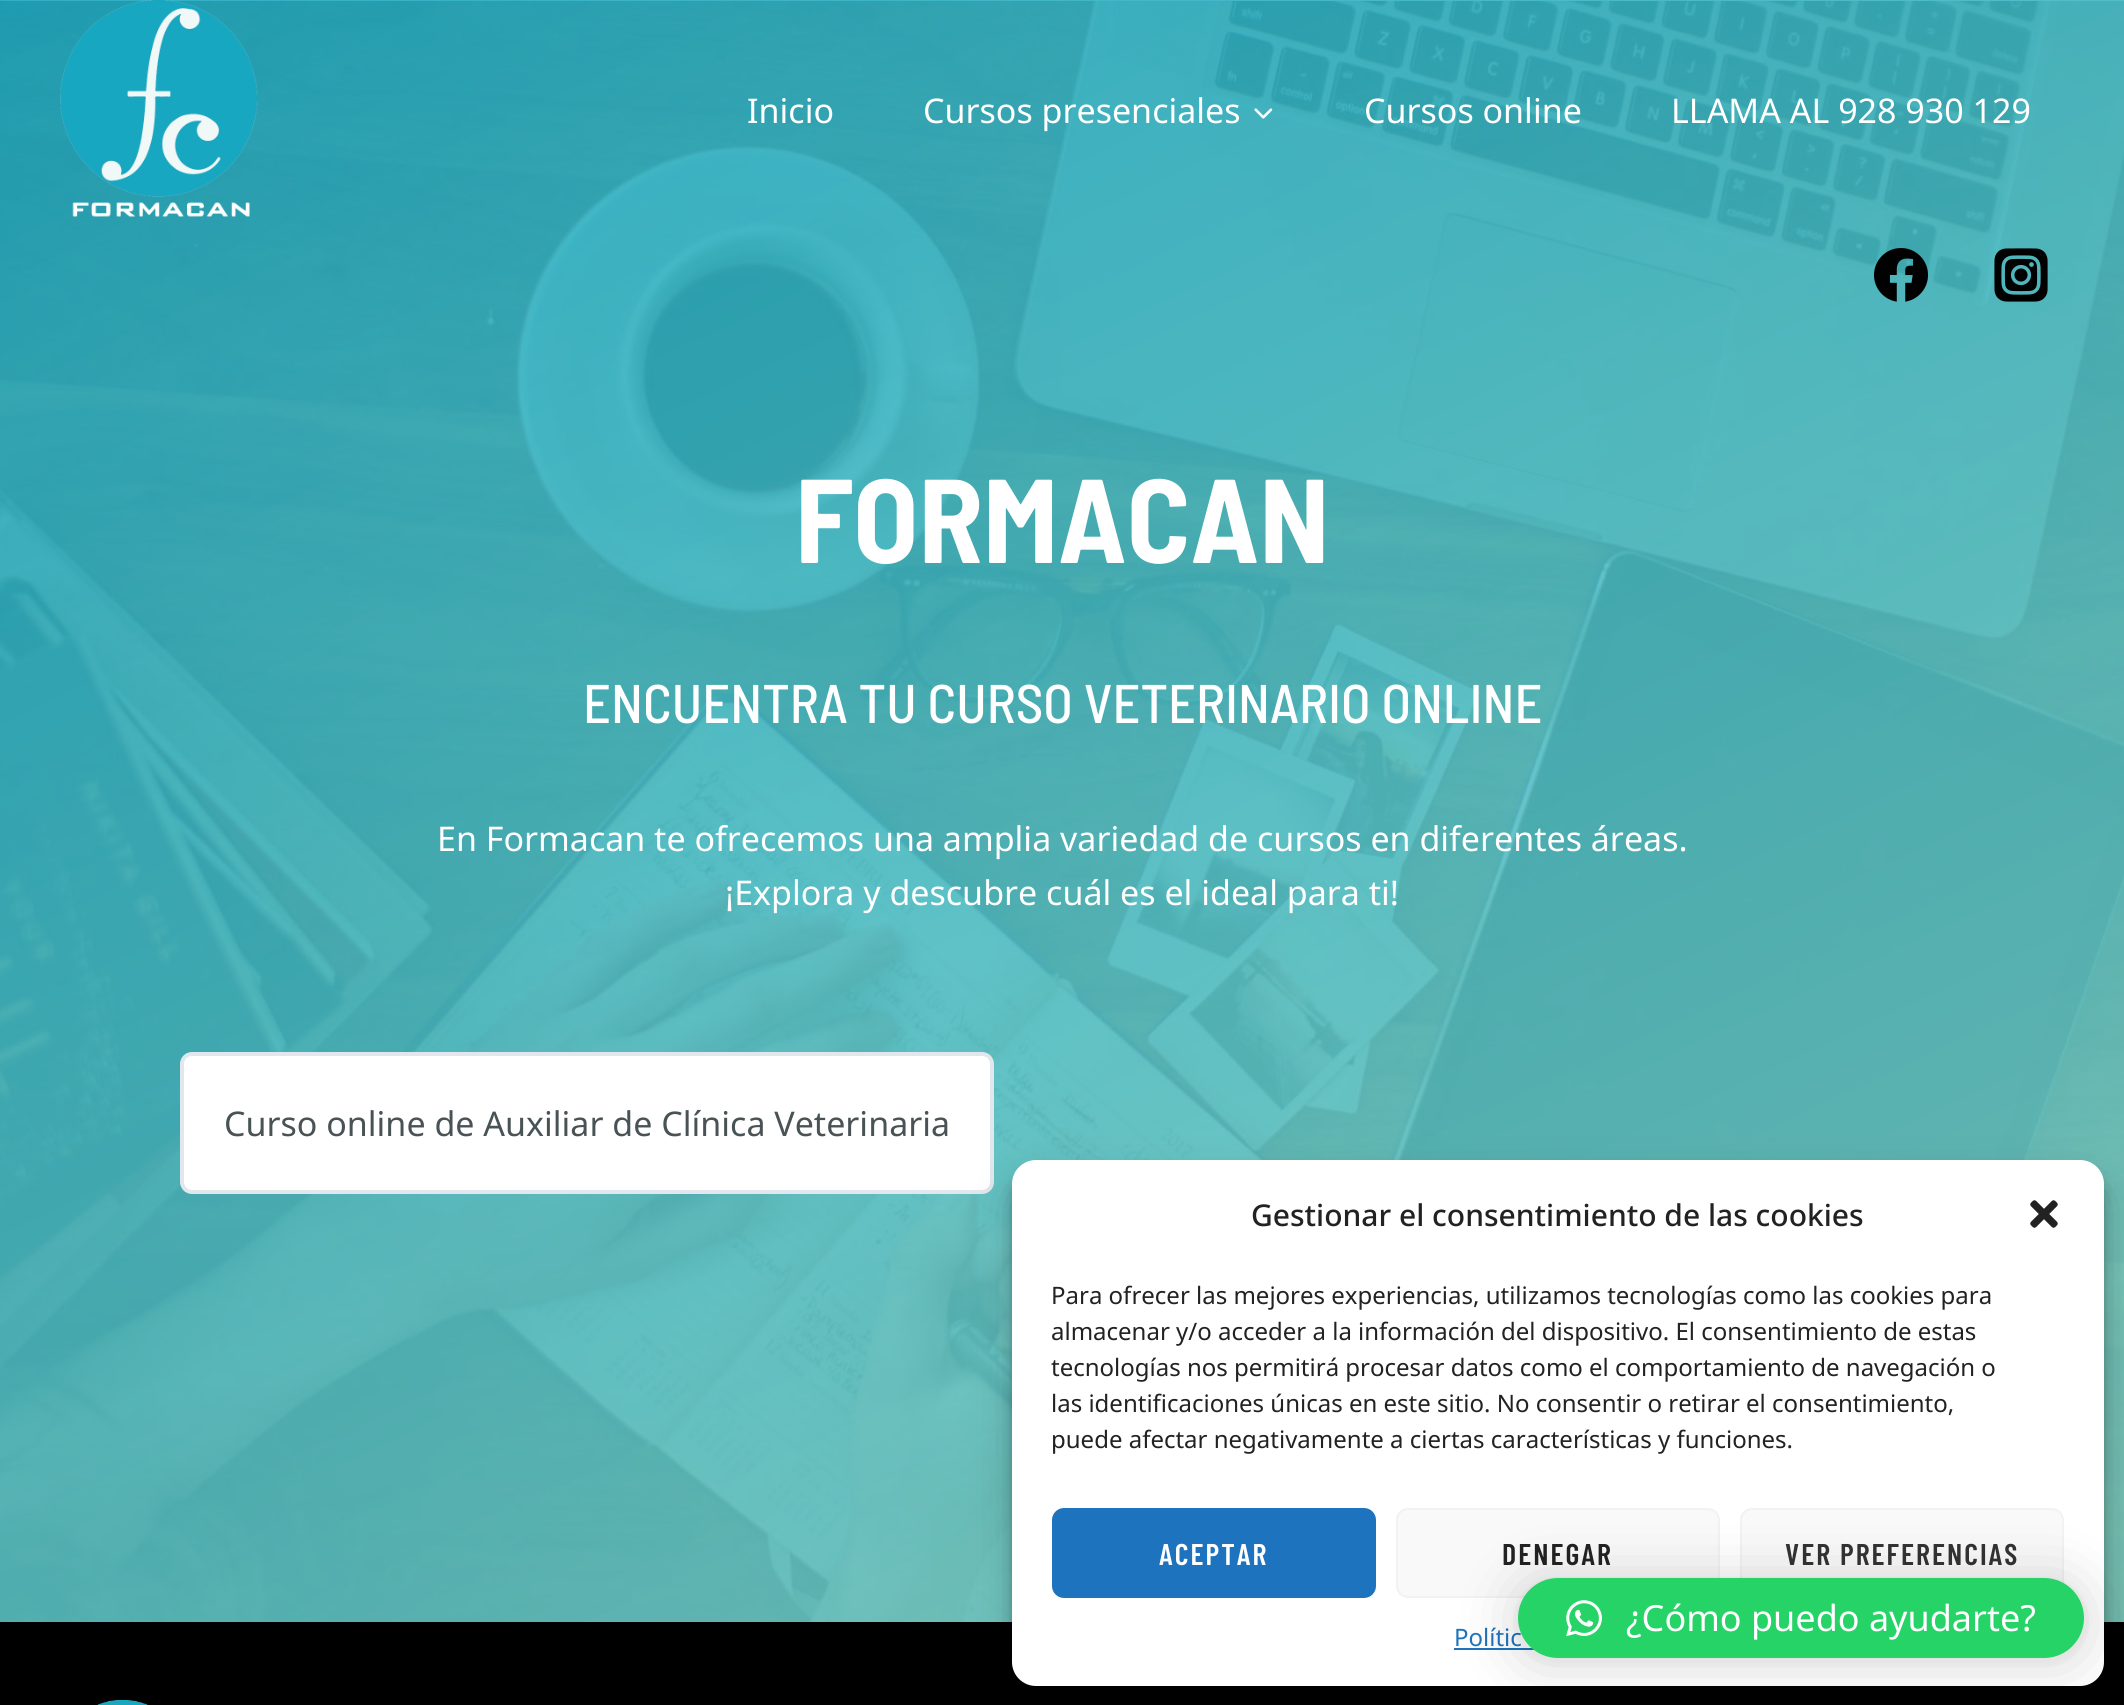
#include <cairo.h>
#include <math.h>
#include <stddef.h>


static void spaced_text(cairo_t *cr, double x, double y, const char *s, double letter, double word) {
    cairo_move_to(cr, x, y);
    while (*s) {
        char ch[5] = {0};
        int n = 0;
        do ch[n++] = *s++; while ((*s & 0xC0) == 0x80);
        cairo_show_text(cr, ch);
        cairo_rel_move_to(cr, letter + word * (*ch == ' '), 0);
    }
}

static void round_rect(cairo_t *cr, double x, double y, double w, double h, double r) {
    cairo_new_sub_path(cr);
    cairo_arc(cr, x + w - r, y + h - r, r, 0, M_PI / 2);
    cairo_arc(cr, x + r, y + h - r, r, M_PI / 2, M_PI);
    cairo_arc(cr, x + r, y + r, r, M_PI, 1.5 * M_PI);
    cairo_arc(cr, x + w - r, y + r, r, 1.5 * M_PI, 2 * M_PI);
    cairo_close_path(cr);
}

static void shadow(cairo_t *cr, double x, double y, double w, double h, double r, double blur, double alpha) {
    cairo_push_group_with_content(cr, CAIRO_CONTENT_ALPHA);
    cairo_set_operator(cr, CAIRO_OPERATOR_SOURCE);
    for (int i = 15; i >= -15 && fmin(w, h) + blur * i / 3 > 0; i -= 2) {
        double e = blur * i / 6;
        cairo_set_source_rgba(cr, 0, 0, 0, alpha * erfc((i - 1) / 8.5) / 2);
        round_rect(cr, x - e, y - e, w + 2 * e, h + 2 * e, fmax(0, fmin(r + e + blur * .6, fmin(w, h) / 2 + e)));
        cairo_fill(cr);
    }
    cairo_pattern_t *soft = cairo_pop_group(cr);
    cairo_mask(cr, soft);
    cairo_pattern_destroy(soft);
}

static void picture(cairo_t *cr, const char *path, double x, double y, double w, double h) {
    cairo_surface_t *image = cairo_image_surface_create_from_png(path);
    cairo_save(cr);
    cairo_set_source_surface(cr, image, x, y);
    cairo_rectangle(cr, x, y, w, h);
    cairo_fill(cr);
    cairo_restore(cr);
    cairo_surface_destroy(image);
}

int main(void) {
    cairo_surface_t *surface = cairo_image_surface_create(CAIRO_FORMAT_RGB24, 2124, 1705);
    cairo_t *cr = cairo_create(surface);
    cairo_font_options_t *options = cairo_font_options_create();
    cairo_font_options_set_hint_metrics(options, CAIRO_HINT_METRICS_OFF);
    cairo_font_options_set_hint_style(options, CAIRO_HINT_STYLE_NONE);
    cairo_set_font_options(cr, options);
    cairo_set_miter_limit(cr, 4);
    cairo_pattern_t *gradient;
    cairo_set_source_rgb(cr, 1, 1, 1);
    cairo_paint(cr);
    picture(cr, "img5.png", 0, 0, 2124, 1622);
    gradient = cairo_pattern_create_linear(562, -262, 1562, 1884);
    cairo_pattern_add_color_stop_rgba(gradient, 0, 0.094, 0.655, 0.753, 0.89);
    cairo_pattern_add_color_stop_rgba(gradient, 1, 0.478, 0.812, 0.769, 0.89);
    cairo_set_source(cr, gradient);
    cairo_pattern_destroy(gradient);
    cairo_rectangle(cr, 0, 0, 2124, 1622);
    cairo_fill(cr);
    picture(cr, "img1.png", 60, 0, 198, 217);
    cairo_select_font_face(cr, "Noto Sans", CAIRO_FONT_SLANT_NORMAL, CAIRO_FONT_WEIGHT_NORMAL);
    cairo_set_font_size(cr, 34);
    cairo_set_source_rgb(cr, 1, 1, 1);
    cairo_move_to(cr, 747, 123);
    cairo_show_text(cr, "Inicio");
    cairo_move_to(cr, 923, 123);
    cairo_show_text(cr, "Cursos presenciales");
    picture(cr, "img2.png", 1254, 108, 19, 11);
    cairo_move_to(cr, 1364, 123);
    cairo_show_text(cr, "Cursos online");
    cairo_move_to(cr, 1671, 123);
    cairo_show_text(cr, "LLAMA AL 928 930 129");
    picture(cr, "img3.png", 1874, 248, 54, 54);
    picture(cr, "img4.png", 1994, 248, 54, 54);
    cairo_select_font_face(cr, "Barlow Semi Condensed", CAIRO_FONT_SLANT_NORMAL, CAIRO_FONT_WEIGHT_BOLD);
    cairo_set_font_size(cr, 119);
    cairo_move_to(cr, 795, 563);
    cairo_show_text(cr, "FORMACAN");
    cairo_select_font_face(cr, "Barlow Semi Condensed Medium", CAIRO_FONT_SLANT_NORMAL, CAIRO_FONT_WEIGHT_NORMAL);
    cairo_set_font_size(cr, 54.4);
    cairo_move_to(cr, 583, 723);
    cairo_show_text(cr, "ENCUENTRA TU CURSO VETERINARIO ONLINE");
    cairo_select_font_face(cr, "Noto Sans", CAIRO_FONT_SLANT_NORMAL, CAIRO_FONT_WEIGHT_NORMAL);
    cairo_set_font_size(cr, 34);
    cairo_move_to(cr, 437, 851);
    cairo_show_text(cr, "En Formacan te ofrecemos una amplia variedad de cursos en diferentes áreas.");
    cairo_move_to(cr, 725, 905);
    cairo_show_text(cr, "¡Explora y descubre cuál es el ideal para ti!");
    round_rect(cr, 182, 1054, 810, 138, 10);
    cairo_fill_preserve(cr);
    cairo_set_source_rgb(cr, 0.886, 0.906, 0.929);
    cairo_set_line_width(cr, 4);
    cairo_stroke(cr);
    cairo_set_source_rgb(cr, 0.286, 0.322, 0.333);
    cairo_move_to(cr, 224, 1136);
    cairo_show_text(cr, "Curso online de Auxiliar de Clínica Veterinaria");
    cairo_set_source_rgb(cr, 0, 0, 0);
    cairo_rectangle(cr, 0, 1622, 2124, 83);
    cairo_fill(cr);
    picture(cr, "img6.png", 97, 1700, 51, 5);
    cairo_set_source_rgb(cr, 0, 0, 0);
    shadow(cr, 1012, 1172, 1092, 526, 24, 6, 0.23);
    shadow(cr, 1012, 1180, 1092, 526, 24, 20, 0.19);
    cairo_set_source_rgb(cr, 1, 1, 1);
    round_rect(cr, 1012, 1160, 1092, 526, 24);
    cairo_fill(cr);
    cairo_select_font_face(cr, "Noto Sans Medium", CAIRO_FONT_SLANT_NORMAL, CAIRO_FONT_WEIGHT_NORMAL);
    cairo_set_font_size(cr, 30);
    cairo_set_source_rgb(cr, 0.133, 0.133, 0.133);
    cairo_move_to(cr, 1251, 1226);
    cairo_show_text(cr, "Gestionar el consentimiento de las cookies");
    picture(cr, "img7.png", 2030, 1200, 28, 28);
    cairo_select_font_face(cr, "Noto Sans", CAIRO_FONT_SLANT_NORMAL, CAIRO_FONT_WEIGHT_NORMAL);
    cairo_set_font_size(cr, 24);
    cairo_move_to(cr, 1051, 1304);
    cairo_show_text(cr, "Para ofrecer las mejores experiencias, utilizamos tecnologías como las cookies para");
    cairo_move_to(cr, 1051, 1340);
    cairo_show_text(cr, "almacenar y/o acceder a la información del dispositivo. El consentimiento de estas");
    cairo_move_to(cr, 1051, 1376);
    cairo_show_text(cr, "tecnologías nos permitirá procesar datos como el comportamiento de navegación o");
    cairo_move_to(cr, 1051, 1412);
    cairo_show_text(cr, "las identificaciones únicas en este sitio. No consentir o retirar el consentimiento,");
    cairo_move_to(cr, 1051, 1448);
    cairo_show_text(cr, "puede afectar negativamente a ciertas características y funciones.");
    cairo_set_source_rgb(cr, 0.118, 0.451, 0.745);
    round_rect(cr, 1053, 1509, 322, 88, 11);
    cairo_fill_preserve(cr);
    cairo_set_line_width(cr, 2);
    cairo_stroke(cr);
    cairo_select_font_face(cr, "Barlow Condensed SemiBold", CAIRO_FONT_SLANT_NORMAL, CAIRO_FONT_WEIGHT_NORMAL);
    cairo_set_font_size(cr, 30);
    cairo_set_source_rgb(cr, 1, 1, 1);
    spaced_text(cr, 1159, 1565, "ACEPTAR", 2, 0);
    cairo_set_source_rgb(cr, 0.976, 0.976, 0.976);
    round_rect(cr, 1397, 1509, 322, 88, 11);
    cairo_fill_preserve(cr);
    cairo_set_source_rgb(cr, 0.949, 0.949, 0.949);
    cairo_stroke(cr);
    cairo_set_source_rgb(cr, 0.133, 0.133, 0.133);
    spaced_text(cr, 1502, 1565, "DENEGAR", 2, 0);
    cairo_set_source_rgb(cr, 0.976, 0.976, 0.976);
    round_rect(cr, 1741, 1509, 322, 88, 11);
    cairo_fill_preserve(cr);
    cairo_set_source_rgb(cr, 0.949, 0.949, 0.949);
    cairo_stroke(cr);
    cairo_set_source_rgb(cr, 0.2, 0.2, 0.2);
    spaced_text(cr, 1785, 1565, "VER PREFERENCIAS", 2, 0);
    cairo_select_font_face(cr, "Noto Sans", CAIRO_FONT_SLANT_NORMAL, CAIRO_FONT_WEIGHT_NORMAL);
    cairo_set_font_size(cr, 24);
    cairo_set_source_rgb(cr, 0.118, 0.451, 0.745);
    cairo_move_to(cr, 1454, 1646);
    cairo_show_text(cr, "Polític");
    cairo_rectangle(cr, 1454, 1648, 80, 2);
    cairo_fill(cr);
    cairo_set_source_rgb(cr, 0, 0, 0);
    shadow(cr, 1518, 1582, 566, 80, 40, 32, 0.16);
    shadow(cr, 1518, 1580, 566, 80, 40, 6, 0.06);
    cairo_set_source_rgb(cr, 0.145, 0.827, 0.4);
    round_rect(cr, 1518, 1578, 566, 80, 40);
    cairo_fill(cr);
    picture(cr, "img8.png", 1566, 1600, 36, 37);
    cairo_set_font_size(cr, 36);
    cairo_set_source_rgb(cr, 1, 1, 1);
    cairo_move_to(cr, 1626, 1631);
    cairo_show_text(cr, "¿Cómo puedo ayudarte?");
    cairo_surface_write_to_png(surface, "page.png");
    cairo_font_options_destroy(options);
    cairo_destroy(cr);
    cairo_surface_destroy(surface);
    return 0;
}
